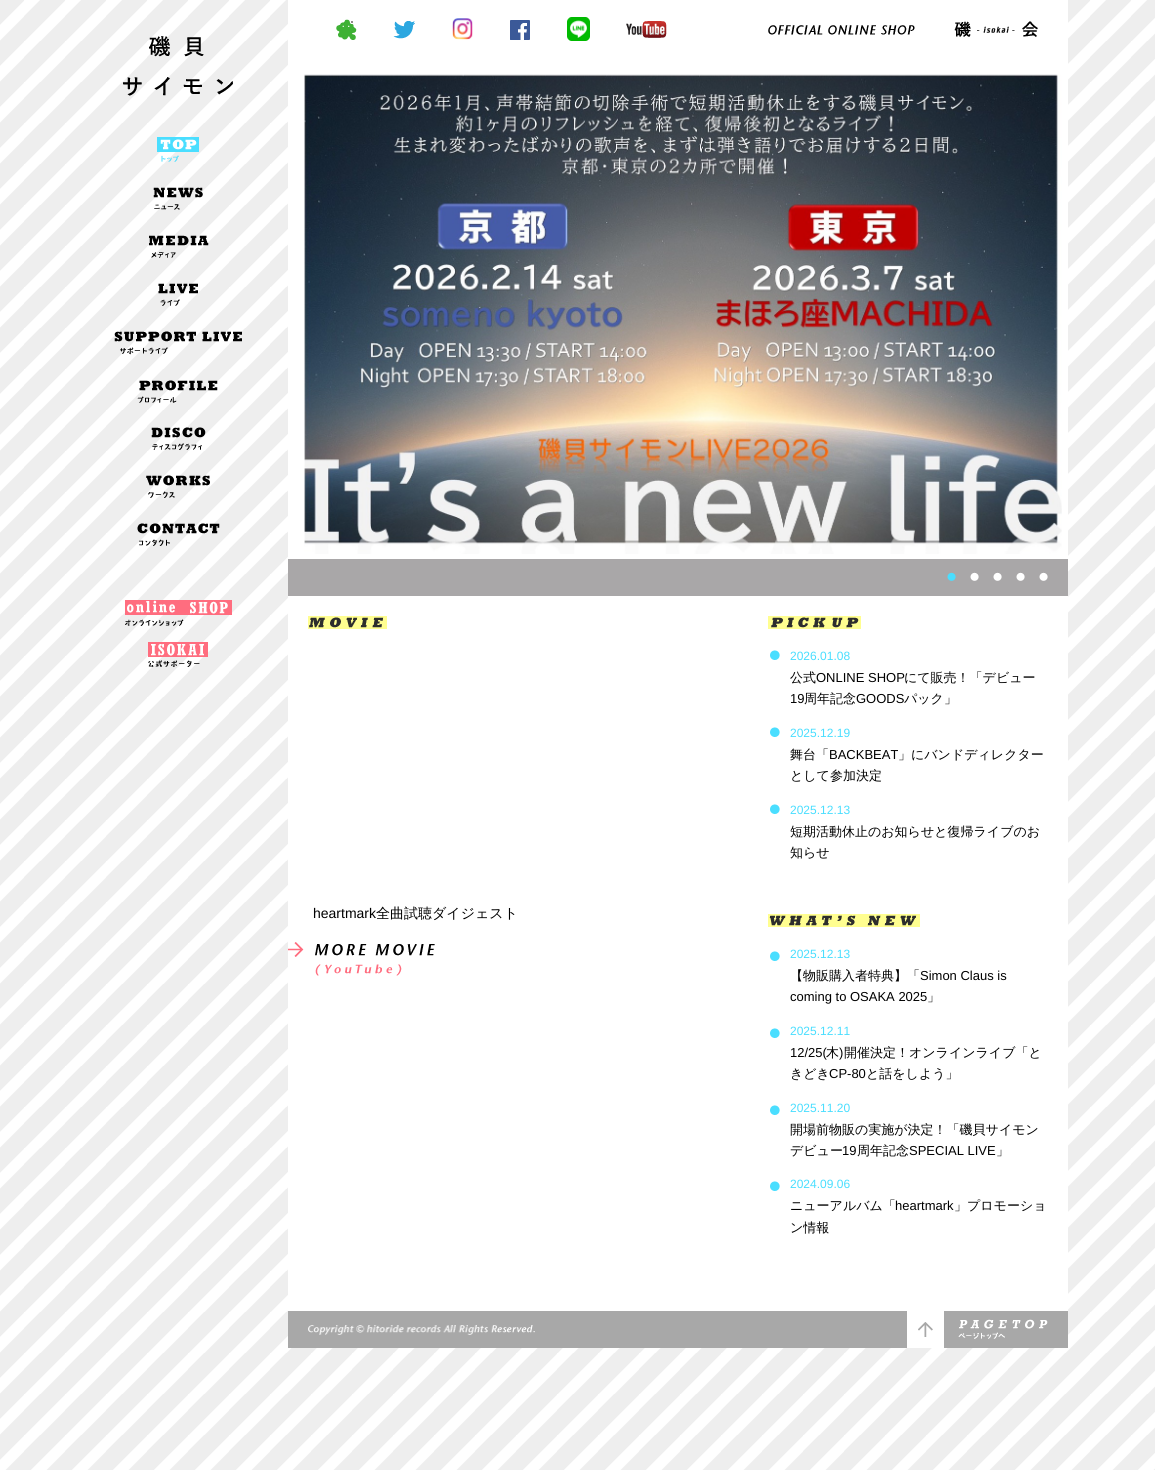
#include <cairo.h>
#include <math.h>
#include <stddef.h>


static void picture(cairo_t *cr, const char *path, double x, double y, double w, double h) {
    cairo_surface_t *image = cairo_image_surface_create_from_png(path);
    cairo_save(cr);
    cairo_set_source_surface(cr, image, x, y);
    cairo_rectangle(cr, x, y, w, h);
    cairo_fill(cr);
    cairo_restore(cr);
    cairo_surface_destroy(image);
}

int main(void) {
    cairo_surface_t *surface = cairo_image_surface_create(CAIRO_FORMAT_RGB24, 1155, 1470);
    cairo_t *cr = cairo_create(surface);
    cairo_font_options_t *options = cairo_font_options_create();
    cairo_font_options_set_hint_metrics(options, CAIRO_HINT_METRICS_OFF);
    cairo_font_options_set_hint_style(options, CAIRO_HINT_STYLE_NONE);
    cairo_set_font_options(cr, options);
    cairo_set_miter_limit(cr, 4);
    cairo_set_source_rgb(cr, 1, 1, 1);
    cairo_paint(cr);
    picture(cr, "img1.png", 0, 0, 1155, 1470);
    picture(cr, "img2.png", 123, 36, 110, 60);
    picture(cr, "img3.png", 157, 137, 42, 25);
    picture(cr, "img4.png", 153, 187, 50, 23);
    picture(cr, "img5.png", 149, 235, 60, 23);
    picture(cr, "img6.png", 158, 283, 40, 23);
    picture(cr, "img7.png", 114, 331, 128, 24);
    picture(cr, "img8.png", 137, 380, 81, 23);
    picture(cr, "img9.png", 151, 427, 55, 23);
    picture(cr, "img10.png", 146, 475, 64, 23);
    picture(cr, "img11.png", 137, 523, 83, 23);
    picture(cr, "img12.png", 125, 600, 107, 26);
    picture(cr, "img13.png", 148, 642, 60, 25);
    cairo_set_source_rgb(cr, 1, 1, 1);
    cairo_rectangle(cr, 288, 0, 780, 1311);
    cairo_fill(cr);
    picture(cr, "img14.png", 336, 19, 21, 21);
    picture(cr, "img15.png", 393, 21, 22, 18);
    picture(cr, "img16.png", 452, 18, 21, 22);
    picture(cr, "img17.png", 510, 20, 20, 20);
    picture(cr, "img18.png", 567, 17, 23, 24);
    picture(cr, "img19.png", 626, 21, 41, 17);
    picture(cr, "img20.png", 768, 25, 147, 10);
    picture(cr, "img21.png", 954, 21, 84, 16);
    picture(cr, "img22.png", 304, 74, 758, 480);
    cairo_set_source_rgb(cr, 0.663, 0.655, 0.659);
    cairo_rectangle(cr, 288, 559, 780, 37);
    cairo_fill(cr);
    picture(cr, "img23.png", 947, 572, 9, 9);
    picture(cr, "img24.png", 970, 572, 9, 9);
    picture(cr, "img24.png", 993, 572, 9, 9);
    picture(cr, "img24.png", 1016, 572, 9, 9);
    picture(cr, "img24.png", 1039, 572, 9, 9);
    picture(cr, "img25.png", 308, 616, 79, 13);
    cairo_select_font_face(cr, "Liberation Sans", CAIRO_FONT_SLANT_NORMAL, CAIRO_FONT_WEIGHT_NORMAL);
    cairo_set_font_size(cr, 14);
    cairo_set_source_rgb(cr, 0, 0, 0);
    cairo_move_to(cr, 313, 918);
    cairo_show_text(cr, "heartmark");
    cairo_select_font_face(cr, "WenQuanYi Zen Hei Medium", CAIRO_FONT_SLANT_NORMAL, CAIRO_FONT_WEIGHT_NORMAL);
    cairo_move_to(cr, 376, 918);
    cairo_show_text(cr, "全曲試聴ダイジェスト");
    picture(cr, "img26.png", 288, 942, 147, 34);
    picture(cr, "img27.png", 768, 616, 93, 13);
    picture(cr, "img28.png", 770, 650, 10, 10);
    cairo_select_font_face(cr, "Liberation Sans", CAIRO_FONT_SLANT_NORMAL, CAIRO_FONT_WEIGHT_NORMAL);
    cairo_set_font_size(cr, 12);
    cairo_set_source_rgb(cr, 0.286, 0.871, 1);
    cairo_move_to(cr, 790, 660);
    cairo_show_text(cr, "2026.01.08");
    cairo_select_font_face(cr, "WenQuanYi Zen Hei Medium", CAIRO_FONT_SLANT_NORMAL, CAIRO_FONT_WEIGHT_NORMAL);
    cairo_set_font_size(cr, 13);
    cairo_set_source_rgb(cr, 0, 0, 0);
    cairo_move_to(cr, 790, 682);
    cairo_show_text(cr, "公式");
    cairo_select_font_face(cr, "Liberation Sans", CAIRO_FONT_SLANT_NORMAL, CAIRO_FONT_WEIGHT_NORMAL);
    cairo_move_to(cr, 816, 682);
    cairo_show_text(cr, "ONLINE SHOP");
    cairo_select_font_face(cr, "WenQuanYi Zen Hei Medium", CAIRO_FONT_SLANT_NORMAL, CAIRO_FONT_WEIGHT_NORMAL);
    cairo_move_to(cr, 904, 682);
    cairo_show_text(cr, "にて販売！「デビュー");
    cairo_select_font_face(cr, "Liberation Sans", CAIRO_FONT_SLANT_NORMAL, CAIRO_FONT_WEIGHT_NORMAL);
    cairo_move_to(cr, 790, 703);
    cairo_show_text(cr, "19");
    cairo_select_font_face(cr, "WenQuanYi Zen Hei Medium", CAIRO_FONT_SLANT_NORMAL, CAIRO_FONT_WEIGHT_NORMAL);
    cairo_move_to(cr, 804, 703);
    cairo_show_text(cr, "周年記念");
    cairo_select_font_face(cr, "Liberation Sans", CAIRO_FONT_SLANT_NORMAL, CAIRO_FONT_WEIGHT_NORMAL);
    cairo_move_to(cr, 856, 703);
    cairo_show_text(cr, "GOODS");
    cairo_select_font_face(cr, "WenQuanYi Zen Hei Medium", CAIRO_FONT_SLANT_NORMAL, CAIRO_FONT_WEIGHT_NORMAL);
    cairo_move_to(cr, 904, 703);
    cairo_show_text(cr, "パック」");
    picture(cr, "img28.png", 770, 727, 10, 10);
    cairo_select_font_face(cr, "Liberation Sans", CAIRO_FONT_SLANT_NORMAL, CAIRO_FONT_WEIGHT_NORMAL);
    cairo_set_font_size(cr, 12);
    cairo_set_source_rgb(cr, 0.286, 0.871, 1);
    cairo_move_to(cr, 790, 737);
    cairo_show_text(cr, "2025.12.19");
    cairo_select_font_face(cr, "WenQuanYi Zen Hei Medium", CAIRO_FONT_SLANT_NORMAL, CAIRO_FONT_WEIGHT_NORMAL);
    cairo_set_font_size(cr, 13);
    cairo_set_source_rgb(cr, 0, 0, 0);
    cairo_move_to(cr, 790, 759);
    cairo_show_text(cr, "舞台「");
    cairo_select_font_face(cr, "Liberation Sans", CAIRO_FONT_SLANT_NORMAL, CAIRO_FONT_WEIGHT_NORMAL);
    cairo_move_to(cr, 829, 759);
    cairo_show_text(cr, "BACKBEAT");
    cairo_select_font_face(cr, "WenQuanYi Zen Hei Medium", CAIRO_FONT_SLANT_NORMAL, CAIRO_FONT_WEIGHT_NORMAL);
    cairo_move_to(cr, 898, 759);
    cairo_show_text(cr, "」にバンドディレクター");
    cairo_move_to(cr, 790, 780);
    cairo_show_text(cr, "として参加決定");
    picture(cr, "img28.png", 770, 804, 10, 10);
    cairo_select_font_face(cr, "Liberation Sans", CAIRO_FONT_SLANT_NORMAL, CAIRO_FONT_WEIGHT_NORMAL);
    cairo_set_font_size(cr, 12);
    cairo_set_source_rgb(cr, 0.286, 0.871, 1);
    cairo_move_to(cr, 790, 814);
    cairo_show_text(cr, "2025.12.13");
    cairo_select_font_face(cr, "WenQuanYi Zen Hei Medium", CAIRO_FONT_SLANT_NORMAL, CAIRO_FONT_WEIGHT_NORMAL);
    cairo_set_font_size(cr, 13);
    cairo_set_source_rgb(cr, 0, 0, 0);
    cairo_move_to(cr, 790, 836);
    cairo_show_text(cr, "短期活動休止のお知らせと復帰ライブのお");
    cairo_move_to(cr, 790, 857);
    cairo_show_text(cr, "知らせ");
    picture(cr, "img29.png", 768, 914, 152, 13);
    picture(cr, "img28.png", 770, 951, 10, 10);
    cairo_select_font_face(cr, "Liberation Sans", CAIRO_FONT_SLANT_NORMAL, CAIRO_FONT_WEIGHT_NORMAL);
    cairo_set_font_size(cr, 12);
    cairo_set_source_rgb(cr, 0.286, 0.871, 1);
    cairo_move_to(cr, 790, 958);
    cairo_show_text(cr, "2025.12.13");
    cairo_select_font_face(cr, "WenQuanYi Zen Hei Medium", CAIRO_FONT_SLANT_NORMAL, CAIRO_FONT_WEIGHT_NORMAL);
    cairo_set_font_size(cr, 13);
    cairo_set_source_rgb(cr, 0, 0, 0);
    cairo_move_to(cr, 790, 980);
    cairo_show_text(cr, "【物販購入者特典】「");
    cairo_select_font_face(cr, "Liberation Sans", CAIRO_FONT_SLANT_NORMAL, CAIRO_FONT_WEIGHT_NORMAL);
    cairo_move_to(cr, 920, 980);
    cairo_show_text(cr, "Simon Claus is");
    cairo_move_to(cr, 790, 1001);
    cairo_show_text(cr, "coming to OSAKA 2025");
    cairo_select_font_face(cr, "WenQuanYi Zen Hei Medium", CAIRO_FONT_SLANT_NORMAL, CAIRO_FONT_WEIGHT_NORMAL);
    cairo_move_to(cr, 927, 1001);
    cairo_show_text(cr, "」");
    picture(cr, "img28.png", 770, 1028, 10, 10);
    cairo_select_font_face(cr, "Liberation Sans", CAIRO_FONT_SLANT_NORMAL, CAIRO_FONT_WEIGHT_NORMAL);
    cairo_set_font_size(cr, 12);
    cairo_set_source_rgb(cr, 0.286, 0.871, 1);
    cairo_move_to(cr, 790, 1035);
    cairo_show_text(cr, "2025.12.11");
    cairo_set_font_size(cr, 13);
    cairo_set_source_rgb(cr, 0, 0, 0);
    cairo_move_to(cr, 790, 1057);
    cairo_show_text(cr, "12/25(");
    cairo_select_font_face(cr, "WenQuanYi Zen Hei Medium", CAIRO_FONT_SLANT_NORMAL, CAIRO_FONT_WEIGHT_NORMAL);
    cairo_move_to(cr, 826, 1057);
    cairo_show_text(cr, "木");
    cairo_select_font_face(cr, "Liberation Sans", CAIRO_FONT_SLANT_NORMAL, CAIRO_FONT_WEIGHT_NORMAL);
    cairo_move_to(cr, 839, 1057);
    cairo_show_text(cr, ")");
    cairo_select_font_face(cr, "WenQuanYi Zen Hei Medium", CAIRO_FONT_SLANT_NORMAL, CAIRO_FONT_WEIGHT_NORMAL);
    cairo_move_to(cr, 844, 1057);
    cairo_show_text(cr, "開催決定！オンラインライブ「と");
    cairo_move_to(cr, 790, 1078);
    cairo_show_text(cr, "きどき");
    cairo_select_font_face(cr, "Liberation Sans", CAIRO_FONT_SLANT_NORMAL, CAIRO_FONT_WEIGHT_NORMAL);
    cairo_move_to(cr, 829, 1078);
    cairo_show_text(cr, "CP-80");
    cairo_select_font_face(cr, "WenQuanYi Zen Hei Medium", CAIRO_FONT_SLANT_NORMAL, CAIRO_FONT_WEIGHT_NORMAL);
    cairo_move_to(cr, 866, 1078);
    cairo_show_text(cr, "と話をしよう」");
    picture(cr, "img28.png", 770, 1105, 10, 10);
    cairo_select_font_face(cr, "Liberation Sans", CAIRO_FONT_SLANT_NORMAL, CAIRO_FONT_WEIGHT_NORMAL);
    cairo_set_font_size(cr, 12);
    cairo_set_source_rgb(cr, 0.286, 0.871, 1);
    cairo_move_to(cr, 790, 1112);
    cairo_show_text(cr, "2025.11.20");
    cairo_select_font_face(cr, "WenQuanYi Zen Hei Medium", CAIRO_FONT_SLANT_NORMAL, CAIRO_FONT_WEIGHT_NORMAL);
    cairo_set_font_size(cr, 13);
    cairo_set_source_rgb(cr, 0, 0, 0);
    cairo_move_to(cr, 790, 1134);
    cairo_show_text(cr, "開場前物販の実施が決定！「磯貝サイモン");
    cairo_move_to(cr, 790, 1155);
    cairo_show_text(cr, "デビュー");
    cairo_select_font_face(cr, "Liberation Sans", CAIRO_FONT_SLANT_NORMAL, CAIRO_FONT_WEIGHT_NORMAL);
    cairo_move_to(cr, 842, 1155);
    cairo_show_text(cr, "19");
    cairo_select_font_face(cr, "WenQuanYi Zen Hei Medium", CAIRO_FONT_SLANT_NORMAL, CAIRO_FONT_WEIGHT_NORMAL);
    cairo_move_to(cr, 857, 1155);
    cairo_show_text(cr, "周年記念");
    cairo_select_font_face(cr, "Liberation Sans", CAIRO_FONT_SLANT_NORMAL, CAIRO_FONT_WEIGHT_NORMAL);
    cairo_move_to(cr, 909, 1155);
    cairo_show_text(cr, "SPECIAL LIVE");
    cairo_select_font_face(cr, "WenQuanYi Zen Hei Medium", CAIRO_FONT_SLANT_NORMAL, CAIRO_FONT_WEIGHT_NORMAL);
    cairo_move_to(cr, 996, 1155);
    cairo_show_text(cr, "」");
    picture(cr, "img28.png", 770, 1181, 10, 10);
    cairo_select_font_face(cr, "Liberation Sans", CAIRO_FONT_SLANT_NORMAL, CAIRO_FONT_WEIGHT_NORMAL);
    cairo_set_font_size(cr, 12);
    cairo_set_source_rgb(cr, 0.286, 0.871, 1);
    cairo_move_to(cr, 790, 1188);
    cairo_show_text(cr, "2024.09.06");
    cairo_select_font_face(cr, "WenQuanYi Zen Hei Medium", CAIRO_FONT_SLANT_NORMAL, CAIRO_FONT_WEIGHT_NORMAL);
    cairo_set_font_size(cr, 13);
    cairo_set_source_rgb(cr, 0, 0, 0);
    cairo_move_to(cr, 790, 1210);
    cairo_show_text(cr, "ニューアルバム「");
    cairo_select_font_face(cr, "Liberation Sans", CAIRO_FONT_SLANT_NORMAL, CAIRO_FONT_WEIGHT_NORMAL);
    cairo_move_to(cr, 895, 1210);
    cairo_show_text(cr, "heartmark");
    cairo_select_font_face(cr, "WenQuanYi Zen Hei Medium", CAIRO_FONT_SLANT_NORMAL, CAIRO_FONT_WEIGHT_NORMAL);
    cairo_move_to(cr, 954, 1210);
    cairo_show_text(cr, "」プロモーショ");
    cairo_move_to(cr, 790, 1232);
    cairo_show_text(cr, "ン情報");
    cairo_set_source_rgb(cr, 0.659, 0.659, 0.659);
    cairo_rectangle(cr, 288, 1311, 780, 37);
    cairo_fill(cr);
    picture(cr, "img30.png", 308, 1325, 227, 10);
    picture(cr, "img31.png", 907, 1311, 141, 37);
    cairo_surface_write_to_png(surface, "page.png");
    cairo_font_options_destroy(options);
    cairo_destroy(cr);
    cairo_surface_destroy(surface);
    return 0;
}
